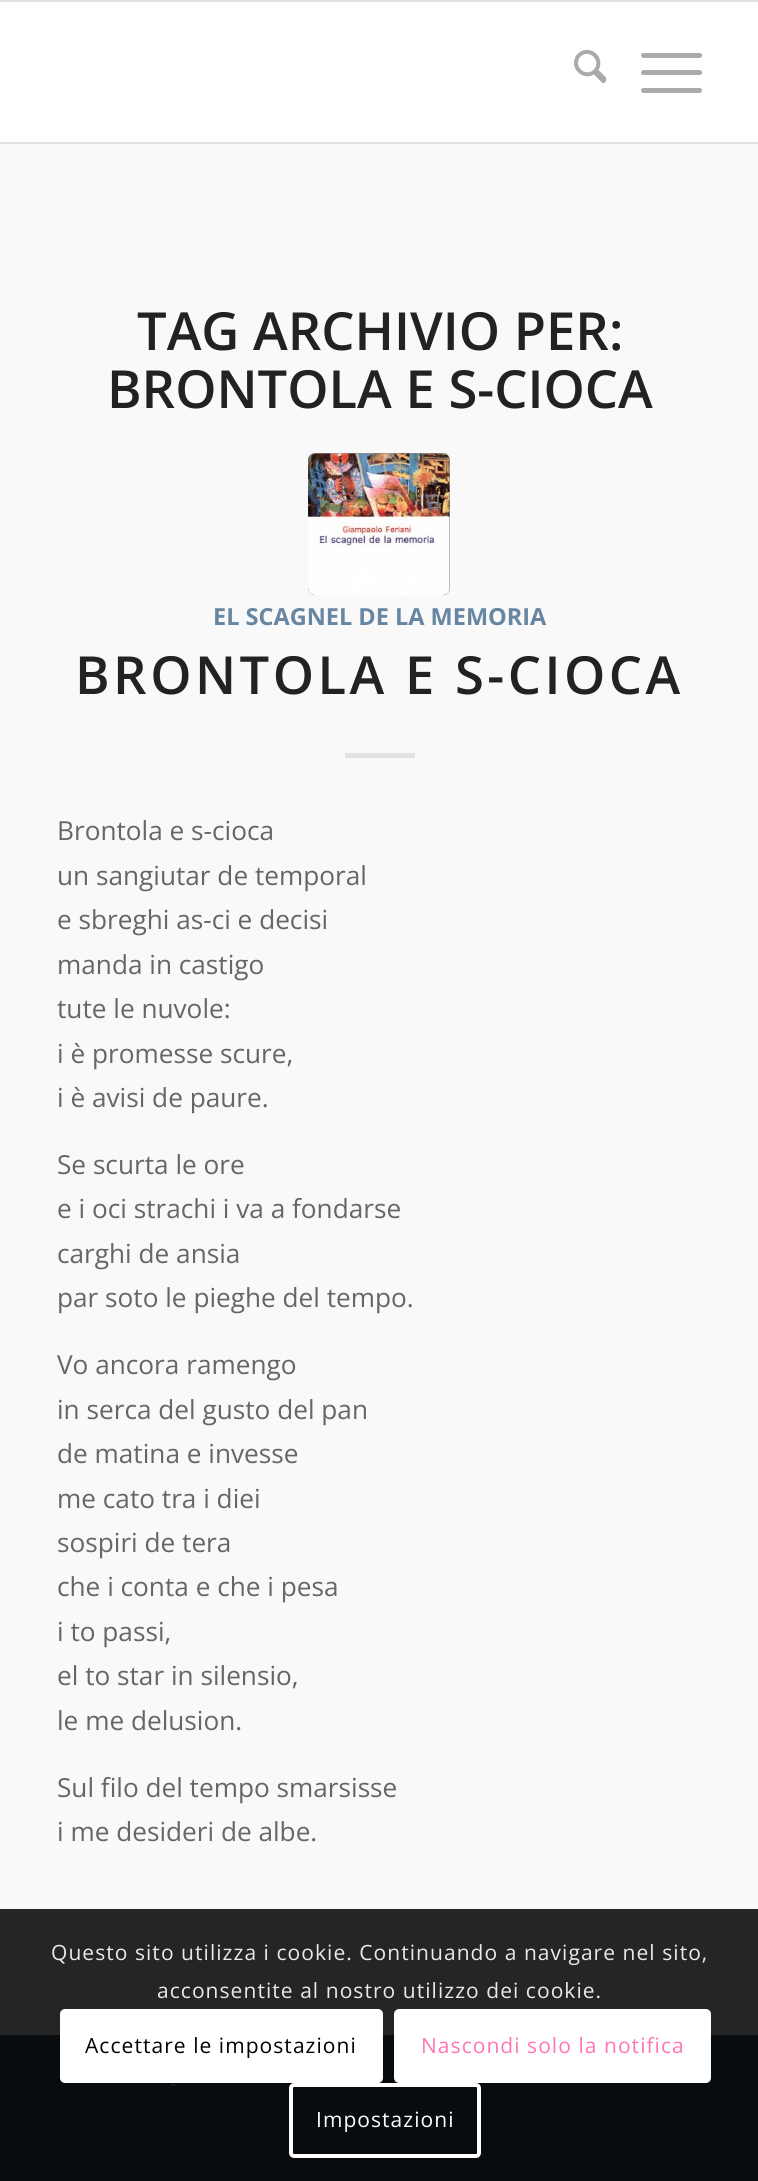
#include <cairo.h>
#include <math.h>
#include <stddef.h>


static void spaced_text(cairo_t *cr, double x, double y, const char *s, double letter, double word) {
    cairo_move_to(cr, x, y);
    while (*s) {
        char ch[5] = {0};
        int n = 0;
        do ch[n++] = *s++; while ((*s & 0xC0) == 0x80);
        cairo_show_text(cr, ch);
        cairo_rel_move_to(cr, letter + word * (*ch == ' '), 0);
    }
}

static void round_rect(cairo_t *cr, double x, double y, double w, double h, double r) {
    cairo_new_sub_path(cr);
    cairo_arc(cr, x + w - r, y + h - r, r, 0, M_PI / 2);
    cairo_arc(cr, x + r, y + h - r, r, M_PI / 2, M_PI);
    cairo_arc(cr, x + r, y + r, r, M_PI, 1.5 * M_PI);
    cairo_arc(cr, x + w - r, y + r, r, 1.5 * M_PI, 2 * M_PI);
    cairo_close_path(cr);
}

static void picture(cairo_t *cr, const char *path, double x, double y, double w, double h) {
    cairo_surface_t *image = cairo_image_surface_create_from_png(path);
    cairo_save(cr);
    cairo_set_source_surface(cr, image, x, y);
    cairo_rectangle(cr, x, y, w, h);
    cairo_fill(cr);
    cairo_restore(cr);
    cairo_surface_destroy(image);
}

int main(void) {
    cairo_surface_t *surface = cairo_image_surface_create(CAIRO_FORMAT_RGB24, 758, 2181);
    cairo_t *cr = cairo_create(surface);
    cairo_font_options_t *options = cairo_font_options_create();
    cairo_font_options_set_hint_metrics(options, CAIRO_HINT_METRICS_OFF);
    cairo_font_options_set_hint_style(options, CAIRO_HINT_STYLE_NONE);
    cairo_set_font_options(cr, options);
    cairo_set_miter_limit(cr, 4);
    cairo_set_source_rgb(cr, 0.035, 0.047, 0.055);
    cairo_paint(cr);
    cairo_set_source_rgb(cr, 0.882, 0.882, 0.882);
    cairo_rectangle(cr, 0, 0, 758, 2);
    cairo_fill(cr);
    cairo_rectangle(cr, 0, 142, 758, 2);
    cairo_fill(cr);
    cairo_set_source_rgb(cr, 1, 1, 1);
    cairo_rectangle(cr, 0, 2, 758, 140);
    cairo_fill(cr);
    picture(cr, "img1.png", 574, 49, 32, 35);
    cairo_set_source_rgb(cr, 0.667, 0.667, 0.667);
    round_rect(cr, 641, 70, 61, 5, 2.5);
    cairo_fill(cr);
    round_rect(cr, 641, 53, 61, 5, 2.5);
    cairo_fill(cr);
    round_rect(cr, 641, 88, 61, 5, 2.5);
    cairo_fill(cr);
    cairo_set_source_rgb(cr, 0.973, 0.973, 0.973);
    cairo_rectangle(cr, 0, 144, 758, 1765);
    cairo_fill(cr);
    cairo_set_source_rgb(cr, 0.145, 0.145, 0.145);
    cairo_rectangle(cr, 0, 1909, 758, 126);
    cairo_fill(cr);
    cairo_select_font_face(cr, "Open Sans SemiBold", CAIRO_FONT_SLANT_NORMAL, CAIRO_FONT_WEIGHT_NORMAL);
    cairo_set_font_size(cr, 52.5);
    cairo_set_source_rgb(cr, 0.133, 0.133, 0.133);
    cairo_move_to(cr, 137, 350);
    cairo_show_text(cr, "TAG ARCHIVIO PER:");
    cairo_move_to(cr, 107, 408);
    cairo_show_text(cr, "BRONTOLA E S-CIOCA");
    cairo_set_source_rgb(cr, 0.553, 0.553, 0.553);
    round_rect(cr, 308, 453, 142, 142, 7);
    cairo_fill(cr);
    picture(cr, "img2.png", 308, 453, 142, 142);
    cairo_select_font_face(cr, "Open Sans", CAIRO_FONT_SLANT_NORMAL, CAIRO_FONT_WEIGHT_BOLD);
    cairo_set_font_size(cr, 23.5);
    cairo_set_source_rgb(cr, 0.404, 0.525, 0.631);
    cairo_move_to(cr, 213, 625);
    cairo_show_text(cr, "EL SCAGNEL DE LA MEMORIA");
    cairo_select_font_face(cr, "Open Sans SemiBold", CAIRO_FONT_SLANT_NORMAL, CAIRO_FONT_WEIGHT_NORMAL);
    cairo_set_font_size(cr, 52.5);
    cairo_set_source_rgb(cr, 0.133, 0.133, 0.133);
    spaced_text(cr, 75, 694, "BRONTOLA E S-CIOCA", 3.5, 0);
    cairo_set_source_rgb(cr, 0.882, 0.882, 0.882);
    cairo_rectangle(cr, 345, 753, 70, 5);
    cairo_fill(cr);
    cairo_select_font_face(cr, "Open Sans", CAIRO_FONT_SLANT_NORMAL, CAIRO_FONT_WEIGHT_NORMAL);
    cairo_set_font_size(cr, 26.2);
    cairo_set_source_rgb(cr, 0.4, 0.4, 0.4);
    cairo_move_to(cr, 57, 840);
    cairo_show_text(cr, "Brontola e s-cioca");
    cairo_move_to(cr, 57, 885);
    cairo_show_text(cr, "un sangiutar de temporal");
    cairo_move_to(cr, 57, 929);
    cairo_show_text(cr, "e sbreghi as-ci e decisi");
    cairo_move_to(cr, 57, 974);
    cairo_show_text(cr, "manda in castigo");
    cairo_move_to(cr, 57, 1018);
    cairo_show_text(cr, "tute le nuvole:");
    cairo_move_to(cr, 57, 1063);
    cairo_show_text(cr, "i è promesse scure,");
    cairo_move_to(cr, 57, 1107);
    cairo_show_text(cr, "i è avisi de paure.");
    cairo_move_to(cr, 57, 1174);
    cairo_show_text(cr, "Se scurta le ore");
    cairo_move_to(cr, 57, 1218);
    cairo_show_text(cr, "e i oci strachi i va a fondarse");
    cairo_move_to(cr, 57, 1263);
    cairo_show_text(cr, "carghi de ansia");
    cairo_move_to(cr, 57, 1307);
    cairo_show_text(cr, "par soto le pieghe del tempo.");
    cairo_move_to(cr, 57, 1374);
    cairo_show_text(cr, "Vo ancora ramengo");
    cairo_move_to(cr, 57, 1419);
    cairo_show_text(cr, "in serca del gusto del pan");
    cairo_move_to(cr, 57, 1463);
    cairo_show_text(cr, "de matina e invesse");
    cairo_move_to(cr, 57, 1508);
    cairo_show_text(cr, "me cato tra i diei");
    cairo_move_to(cr, 57, 1552);
    cairo_show_text(cr, "sospiri de tera");
    cairo_move_to(cr, 57, 1596);
    cairo_show_text(cr, "che i conta e che i pesa");
    cairo_move_to(cr, 57, 1641);
    cairo_show_text(cr, "i to passi,");
    cairo_move_to(cr, 57, 1685);
    cairo_show_text(cr, "el to star in silensio,");
    cairo_move_to(cr, 57, 1730);
    cairo_show_text(cr, "le me delusion.");
    cairo_move_to(cr, 57, 1797);
    cairo_show_text(cr, "Sul filo del tempo smarsisse");
    cairo_move_to(cr, 57, 1841);
    cairo_show_text(cr, "i me desideri de albe.");
    cairo_set_font_size(cr, 19);
    cairo_set_source_rgb(cr, 0.133, 0.133, 0.133);
    cairo_move_to(cr, 170, 2090);
    cairo_show_text(cr, "-");
    cairo_set_font_size(cr, 21);
    cairo_set_source_rgb(cr, 0.914, 0.914, 0.914);
    spaced_text(cr, 51, 1960, "Questo sito utilizza i cookie. Continuando a navigare nel sito,", 1.05, 0);
    spaced_text(cr, 157, 1998, "acconsentite al nostro utilizzo dei cookie.", 1.05, 0);
    cairo_set_source_rgb(cr, 1, 1, 1);
    round_rect(cr, 60, 2009, 323, 74, 5);
    cairo_fill(cr);
    cairo_set_source_rgb(cr, 0, 0, 0);
    spaced_text(cr, 85, 2053, "Accettare le impostazioni", 1.05, 0);
    cairo_set_source_rgb(cr, 1, 1, 1);
    round_rect(cr, 396, 2011, 313, 70, 3);
    cairo_fill_preserve(cr);
    cairo_set_line_width(cr, 4);
    cairo_stroke(cr);
    cairo_set_source_rgb(cr, 1, 0.459, 0.71);
    spaced_text(cr, 421, 2053, "Nascondi solo la notifica", 1.05, 0);
    round_rect(cr, 291, 2085, 188, 71, 3);
    cairo_set_source_rgb(cr, 1, 1, 1);
    cairo_stroke(cr);
    spaced_text(cr, 316, 2127, "Impostazioni", 1.05, 0);
    cairo_surface_write_to_png(surface, "page.png");
    cairo_font_options_destroy(options);
    cairo_destroy(cr);
    cairo_surface_destroy(surface);
    return 0;
}
